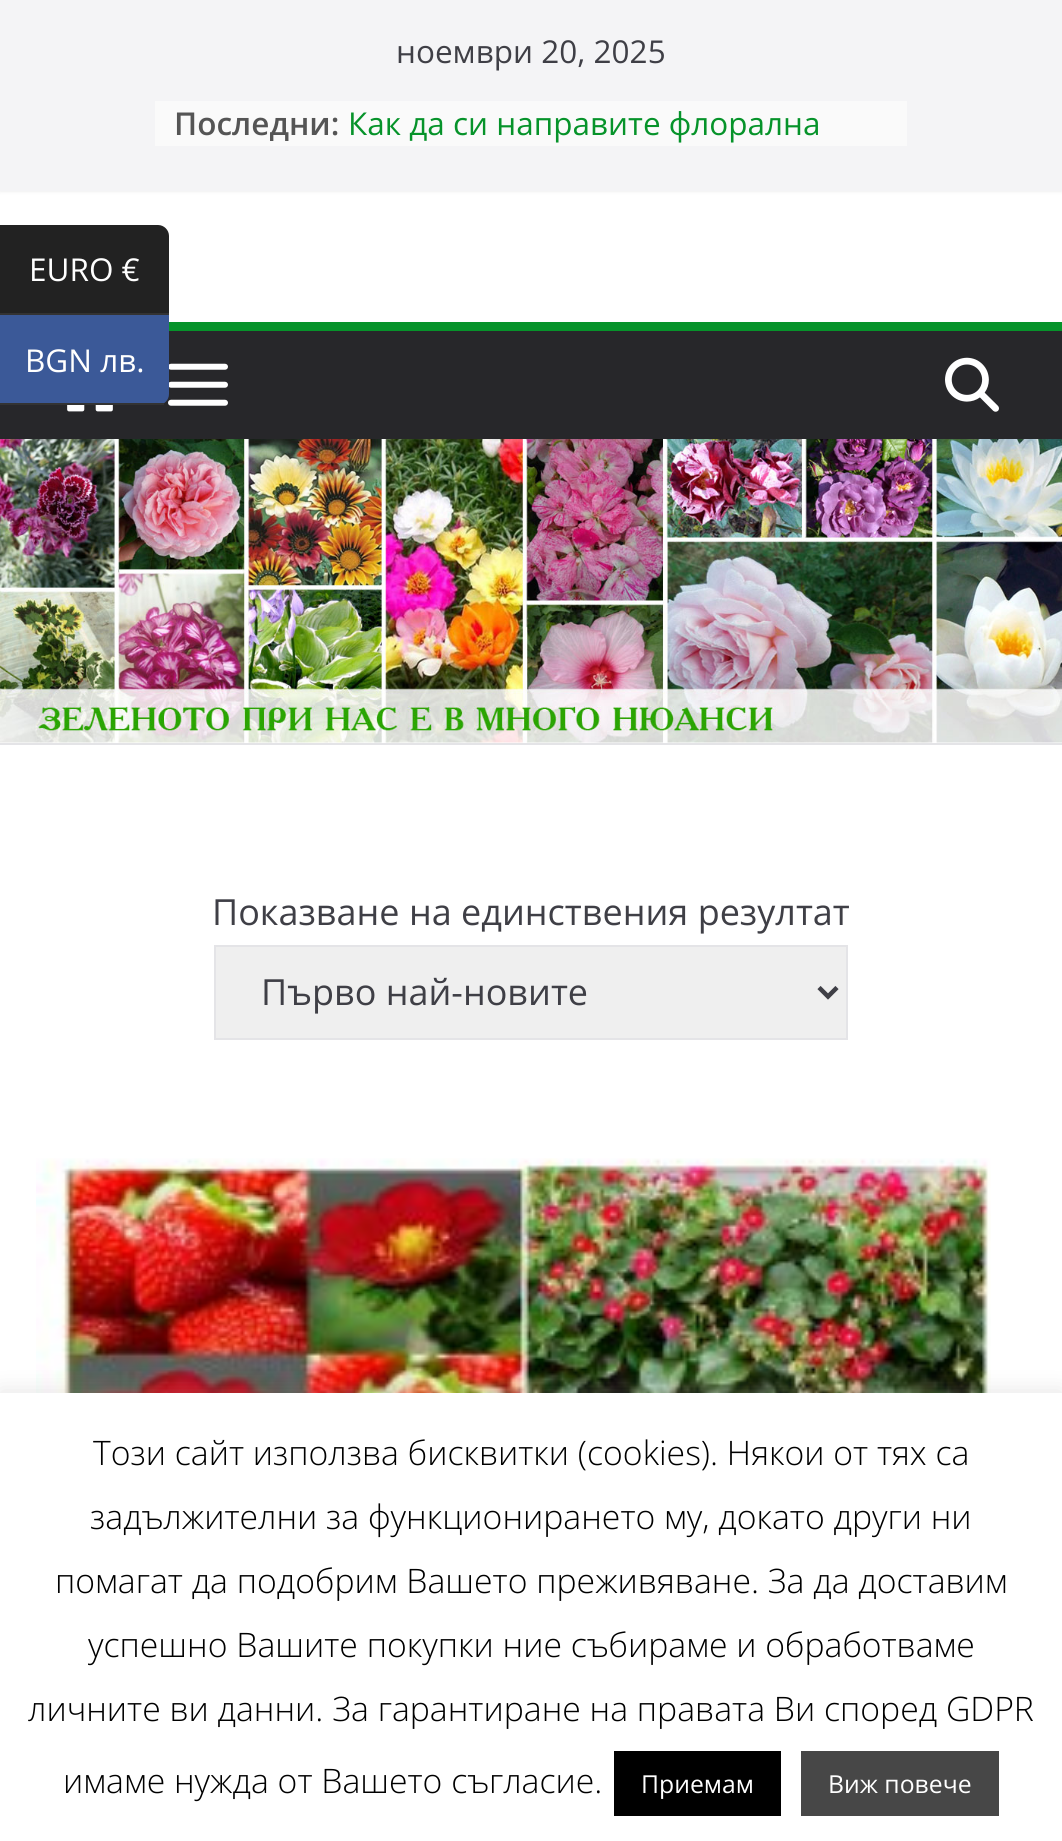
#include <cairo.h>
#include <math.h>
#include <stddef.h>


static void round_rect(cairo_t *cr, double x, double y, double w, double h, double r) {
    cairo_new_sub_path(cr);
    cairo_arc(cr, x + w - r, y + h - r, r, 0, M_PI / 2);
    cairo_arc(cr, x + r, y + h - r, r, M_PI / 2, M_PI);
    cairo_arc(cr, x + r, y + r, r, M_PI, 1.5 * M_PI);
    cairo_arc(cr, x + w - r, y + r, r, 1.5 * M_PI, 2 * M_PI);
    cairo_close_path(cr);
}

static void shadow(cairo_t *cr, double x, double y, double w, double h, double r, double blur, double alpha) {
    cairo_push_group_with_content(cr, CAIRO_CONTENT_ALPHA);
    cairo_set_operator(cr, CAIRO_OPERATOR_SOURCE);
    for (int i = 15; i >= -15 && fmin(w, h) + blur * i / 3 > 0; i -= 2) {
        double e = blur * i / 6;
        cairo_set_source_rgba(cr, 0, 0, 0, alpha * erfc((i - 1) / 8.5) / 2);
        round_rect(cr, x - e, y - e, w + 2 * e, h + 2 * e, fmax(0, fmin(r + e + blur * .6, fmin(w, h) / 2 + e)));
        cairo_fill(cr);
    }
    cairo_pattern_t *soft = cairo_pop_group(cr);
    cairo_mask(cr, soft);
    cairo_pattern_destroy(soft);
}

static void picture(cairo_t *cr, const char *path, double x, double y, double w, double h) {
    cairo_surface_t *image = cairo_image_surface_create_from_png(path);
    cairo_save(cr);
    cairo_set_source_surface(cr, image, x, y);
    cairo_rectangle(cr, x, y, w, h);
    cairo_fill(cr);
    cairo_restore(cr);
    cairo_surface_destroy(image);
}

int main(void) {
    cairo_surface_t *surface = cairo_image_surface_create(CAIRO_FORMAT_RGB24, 1062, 1841);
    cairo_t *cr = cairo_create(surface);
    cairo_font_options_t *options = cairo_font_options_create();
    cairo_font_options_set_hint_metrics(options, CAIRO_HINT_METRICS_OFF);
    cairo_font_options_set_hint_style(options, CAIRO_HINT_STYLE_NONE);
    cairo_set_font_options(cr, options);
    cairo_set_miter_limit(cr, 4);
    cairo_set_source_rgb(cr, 1, 1, 1);
    cairo_paint(cr);
    cairo_set_source_rgb(cr, 0.133, 0.133, 0.133);
    cairo_new_path(cr);
    cairo_move_to(cr, 0, 225);
    cairo_line_to(cr, 158, 225);
    cairo_curve_to(cr, 164, 225, 169, 230, 169, 236);
    cairo_line_to(cr, 169, 315);
    cairo_line_to(cr, 0, 315);
    cairo_close_path(cr);
    cairo_fill(cr);
    cairo_set_source_rgb(cr, 0.2, 0.2, 0.2);
    cairo_rectangle(cr, 0, 313, 169, 2);
    cairo_fill(cr);
    cairo_select_font_face(cr, "Open Sans", CAIRO_FONT_SLANT_NORMAL, CAIRO_FONT_WEIGHT_NORMAL);
    cairo_set_font_size(cr, 31.5);
    cairo_set_source_rgb(cr, 1, 1, 1);
    cairo_move_to(cr, 29, 281);
    cairo_show_text(cr, "EURO €");
    cairo_set_source_rgb(cr, 0.153, 0.153, 0.165);
    cairo_rectangle(cr, 0, 331, 1062, 108);
    cairo_fill(cr);
    picture(cr, "img1.png", 168, 363, 60, 43);
    cairo_set_source_rgb(cr, 0.231, 0.349, 0.596);
    cairo_new_path(cr);
    cairo_move_to(cr, 0, 315);
    cairo_line_to(cr, 169, 315);
    cairo_line_to(cr, 169, 394);
    cairo_curve_to(cr, 169, 400, 164, 405, 158, 405);
    cairo_line_to(cr, 0, 405);
    cairo_close_path(cr);
    cairo_fill(cr);
    cairo_set_source_rgb(cr, 0.2, 0.2, 0.2);
    cairo_rectangle(cr, 0, 403, 164, 2);
    cairo_fill(cr);
    cairo_set_source_rgb(cr, 1, 1, 1);
    cairo_move_to(cr, 25, 372);
    cairo_show_text(cr, "BGN лв.");
    cairo_set_source_rgb(cr, 0, 0, 0);
    shadow(cr, 0, 0, 1062, 191, 0, 2, 0.1);
    cairo_set_source_rgb(cr, 0.957, 0.957, 0.961);
    cairo_rectangle(cr, 0, 0, 1062, 191);
    cairo_fill(cr);
    cairo_set_source_rgb(cr, 0.247, 0.247, 0.275);
    cairo_move_to(cr, 396, 63);
    cairo_show_text(cr, "ноември 20, 2025");
    cairo_set_source_rgb(cr, 0.98, 0.98, 0.98);
    cairo_rectangle(cr, 155, 101, 752, 45);
    cairo_fill(cr);
    cairo_select_font_face(cr, "Open Sans SemiBold", CAIRO_FONT_SLANT_NORMAL, CAIRO_FONT_WEIGHT_NORMAL);
    cairo_set_source_rgb(cr, 0.333, 0.333, 0.333);
    cairo_move_to(cr, 174, 135);
    cairo_show_text(cr, "Последни:");
    cairo_select_font_face(cr, "Open Sans", CAIRO_FONT_SLANT_NORMAL, CAIRO_FONT_WEIGHT_NORMAL);
    cairo_set_source_rgb(cr, 0.027, 0.576, 0.165);
    cairo_move_to(cr, 348, 135);
    cairo_show_text(cr, "Как да си направите флорална");
    cairo_rectangle(cr, 169, 322, 893, 9);
    cairo_fill(cr);
    picture(cr, "img2.png", 945, 357, 54, 55);
    picture(cr, "img3.png", 67, 405, 46, 7);
    picture(cr, "img4.png", 0, 439, 1062, 304);
    cairo_set_source_rgb(cr, 0.894, 0.894, 0.906);
    cairo_rectangle(cr, 0, 743, 1062, 2);
    cairo_fill(cr);
    cairo_set_font_size(cr, 36);
    cairo_set_source_rgb(cr, 0.247, 0.247, 0.275);
    cairo_move_to(cr, 212, 925);
    cairo_show_text(cr, "Показване на единствения резултат");
    cairo_set_source_rgb(cr, 0.937, 0.937, 0.937);
    cairo_rectangle(cr, 215, 946, 632, 93);
    cairo_fill_preserve(cr);
    cairo_set_source_rgb(cr, 0.894, 0.894, 0.906);
    cairo_stroke(cr);
    cairo_new_path(cr);
    cairo_move_to(cr, 819, 987.5);
    cairo_line_to(cr, 828, 996.5);
    cairo_line_to(cr, 837, 987.5);
    cairo_set_source_rgb(cr, 0.247, 0.247, 0.275);
    cairo_set_line_width(cr, 4.5);
    cairo_stroke(cr);
    cairo_move_to(cr, 261, 1005);
    cairo_show_text(cr, "Първо най-новите");
    picture(cr, "img5.png", 36, 1158, 955, 235);
    cairo_set_source_rgb(cr, 0.675, 0.671, 0.671);
    shadow(cr, 0, 1391, 1062, 450, 0, 11, 0.3);
    cairo_set_source_rgb(cr, 1, 1, 1);
    cairo_rectangle(cr, 0, 1393, 1062, 448);
    cairo_fill(cr);
    cairo_select_font_face(cr, "Open Sans Light", CAIRO_FONT_SLANT_NORMAL, CAIRO_FONT_WEIGHT_NORMAL);
    cairo_set_font_size(cr, 33.75);
    cairo_set_source_rgb(cr, 0, 0, 0);
    cairo_move_to(cr, 93, 1465);
    cairo_show_text(cr, "Този сайт използва бисквитки (cookies). Някои от тях са");
    cairo_move_to(cr, 90, 1529);
    cairo_show_text(cr, "задължителни за функционирането му, докато други ни");
    cairo_move_to(cr, 55, 1593);
    cairo_show_text(cr, "помагат да подобрим Вашето преживяване. За да доставим");
    cairo_move_to(cr, 88, 1657);
    cairo_show_text(cr, "успешно Вашите покупки ние събираме и обработваме");
    cairo_move_to(cr, 28, 1721);
    cairo_show_text(cr, "личните ви данни. За гарантиране на правата Ви според GDPR");
    cairo_move_to(cr, 63, 1793);
    cairo_show_text(cr, "имаме нужда от Вашето съгласие.");
    cairo_rectangle(cr, 614, 1751, 167, 65);
    cairo_fill(cr);
    cairo_select_font_face(cr, "Open Sans", CAIRO_FONT_SLANT_NORMAL, CAIRO_FONT_WEIGHT_NORMAL);
    cairo_set_font_size(cr, 24.75);
    cairo_set_source_rgb(cr, 1, 1, 1);
    cairo_move_to(cr, 641, 1793);
    cairo_show_text(cr, "Приемам");
    cairo_set_source_rgb(cr, 0.278, 0.278, 0.278);
    cairo_rectangle(cr, 801, 1751, 198, 65);
    cairo_fill(cr);
    cairo_set_source_rgb(cr, 1, 1, 1);
    cairo_move_to(cr, 828, 1793);
    cairo_show_text(cr, "Виж повече");
    cairo_surface_write_to_png(surface, "page.png");
    cairo_font_options_destroy(options);
    cairo_destroy(cr);
    cairo_surface_destroy(surface);
    return 0;
}
